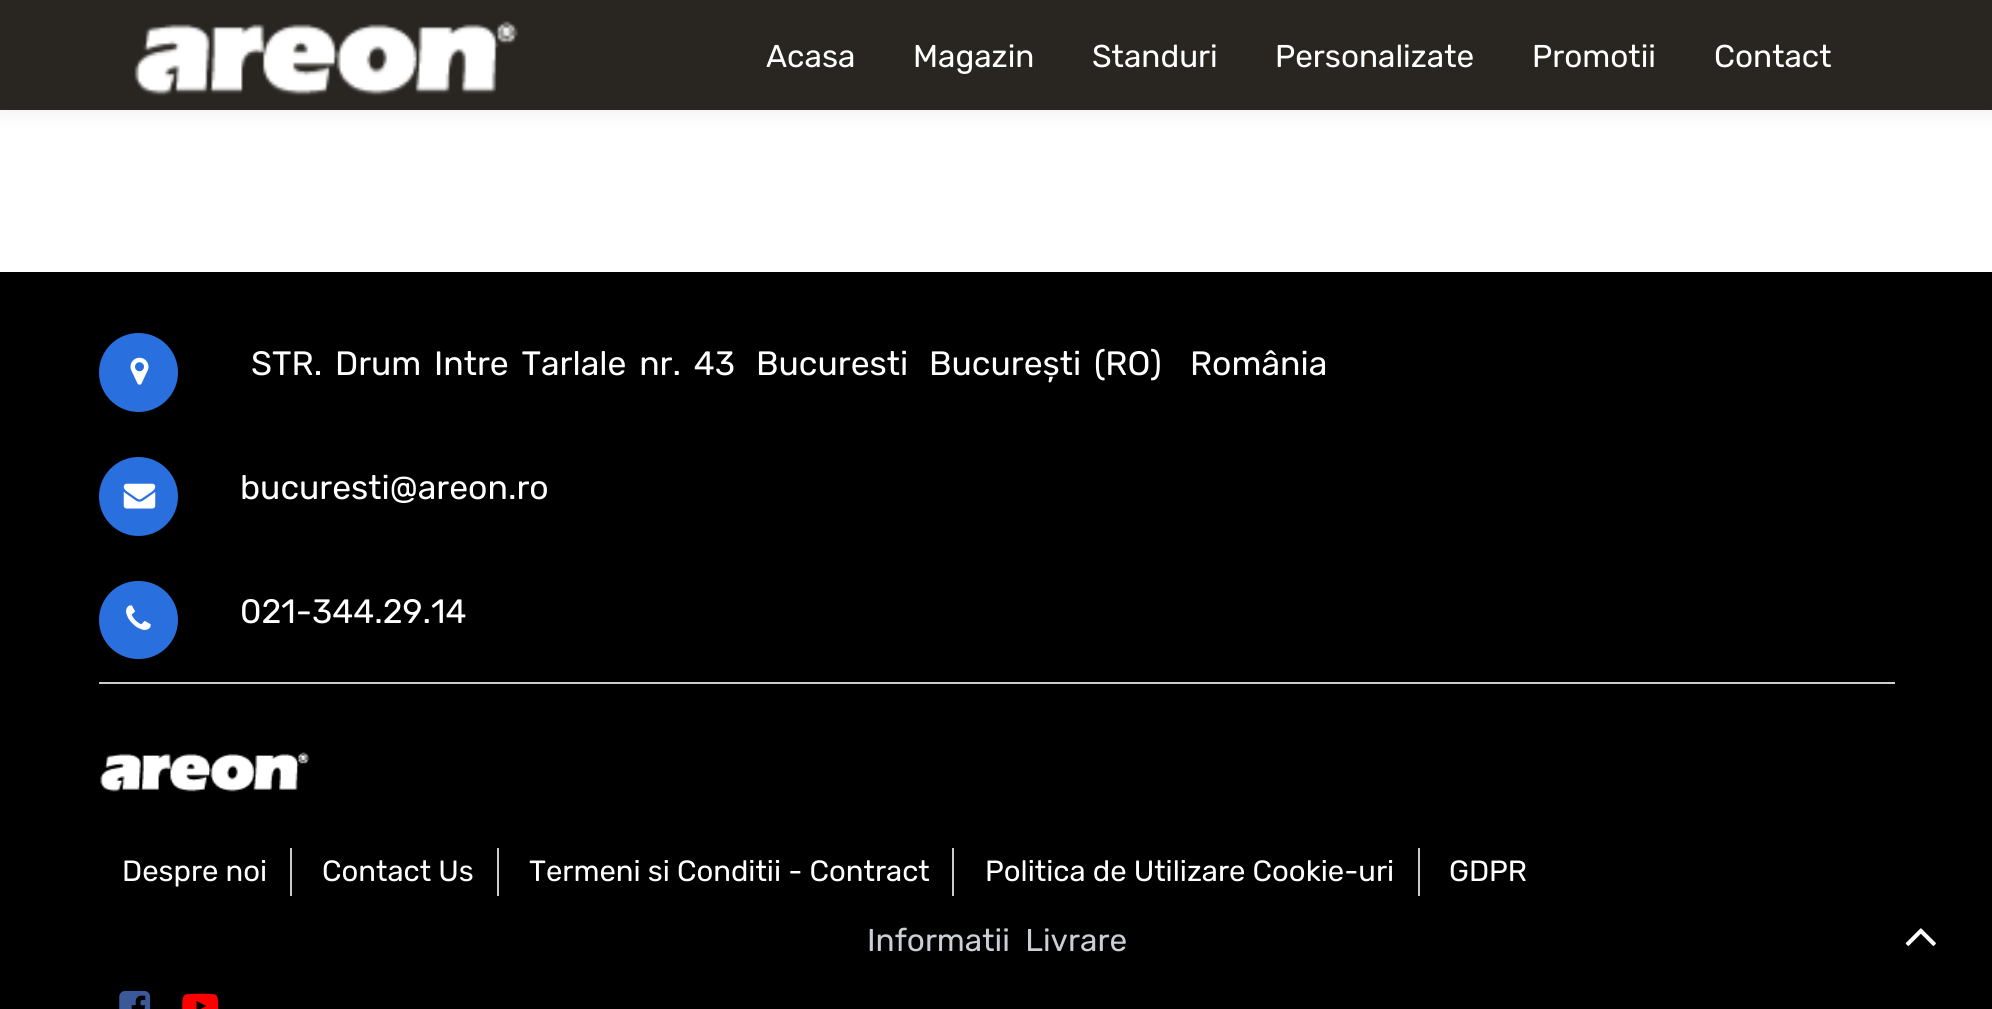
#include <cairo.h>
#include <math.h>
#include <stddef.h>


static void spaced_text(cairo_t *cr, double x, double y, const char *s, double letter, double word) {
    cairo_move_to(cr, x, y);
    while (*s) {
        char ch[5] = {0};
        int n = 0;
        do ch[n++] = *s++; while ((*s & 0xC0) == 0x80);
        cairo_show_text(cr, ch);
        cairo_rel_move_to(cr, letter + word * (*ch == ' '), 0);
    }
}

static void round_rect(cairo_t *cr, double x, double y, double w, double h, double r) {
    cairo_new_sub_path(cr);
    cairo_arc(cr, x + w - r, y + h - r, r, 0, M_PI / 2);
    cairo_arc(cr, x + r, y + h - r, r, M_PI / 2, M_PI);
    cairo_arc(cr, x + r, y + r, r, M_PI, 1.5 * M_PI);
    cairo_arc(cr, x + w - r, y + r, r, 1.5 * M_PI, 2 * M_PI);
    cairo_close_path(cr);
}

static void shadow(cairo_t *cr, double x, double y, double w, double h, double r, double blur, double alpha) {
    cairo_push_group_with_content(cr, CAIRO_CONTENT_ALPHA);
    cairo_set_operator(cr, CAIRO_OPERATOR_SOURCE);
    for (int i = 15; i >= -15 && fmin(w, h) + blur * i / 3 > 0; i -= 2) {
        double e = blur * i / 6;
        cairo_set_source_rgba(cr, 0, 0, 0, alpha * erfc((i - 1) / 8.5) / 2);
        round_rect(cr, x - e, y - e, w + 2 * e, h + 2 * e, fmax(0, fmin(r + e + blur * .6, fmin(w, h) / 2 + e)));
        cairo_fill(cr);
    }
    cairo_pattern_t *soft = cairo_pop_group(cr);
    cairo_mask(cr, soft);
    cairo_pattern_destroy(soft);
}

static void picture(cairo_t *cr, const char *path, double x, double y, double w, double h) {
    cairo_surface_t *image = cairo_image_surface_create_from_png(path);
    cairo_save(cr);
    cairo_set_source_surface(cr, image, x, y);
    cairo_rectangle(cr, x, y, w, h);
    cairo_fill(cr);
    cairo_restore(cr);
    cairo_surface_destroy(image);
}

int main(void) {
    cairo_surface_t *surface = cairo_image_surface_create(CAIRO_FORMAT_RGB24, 1992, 1009);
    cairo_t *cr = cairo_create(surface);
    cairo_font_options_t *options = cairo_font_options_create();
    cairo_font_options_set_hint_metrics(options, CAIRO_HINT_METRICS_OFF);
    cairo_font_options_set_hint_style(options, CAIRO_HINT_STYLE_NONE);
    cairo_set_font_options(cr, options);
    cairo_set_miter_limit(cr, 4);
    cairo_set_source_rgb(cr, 1, 1, 1);
    cairo_paint(cr);
    cairo_set_source_rgb(cr, 0.196, 0.196, 0.365);
    shadow(cr, 0, 0, 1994, 110, 0, 11, 0.1);
    cairo_set_source_rgb(cr, 0.161, 0.149, 0.129);
    cairo_rectangle(cr, 0, 0, 1992, 110);
    cairo_fill(cr);
    picture(cr, "img1.png", 134, 21, 384, 75);
    cairo_select_font_face(cr, "Rubik Light", CAIRO_FONT_SLANT_NORMAL, CAIRO_FONT_WEIGHT_NORMAL);
    cairo_set_font_size(cr, 31.5);
    cairo_set_source_rgb(cr, 1, 1, 1);
    cairo_move_to(cr, 766, 67);
    cairo_show_text(cr, "Acasa");
    cairo_move_to(cr, 913, 67);
    cairo_show_text(cr, "Magazin");
    cairo_move_to(cr, 1092, 67);
    cairo_show_text(cr, "Standuri");
    cairo_move_to(cr, 1275, 67);
    cairo_show_text(cr, "Personalizate");
    cairo_move_to(cr, 1532, 67);
    cairo_show_text(cr, "Promotii");
    cairo_move_to(cr, 1714, 67);
    cairo_show_text(cr, "Contact");
    cairo_set_source_rgb(cr, 0, 0, 0);
    cairo_rectangle(cr, 0, 272, 1992, 737);
    cairo_fill(cr);
    cairo_set_source_rgb(cr, 0.161, 0.435, 0.867);
    cairo_arc(cr, 138.5, 372.5, 39.5, 0, 2 * M_PI);
    cairo_fill(cr);
    picture(cr, "img2.png", 130, 357, 19, 28);
    cairo_set_font_size(cr, 33.75);
    cairo_set_source_rgb(cr, 1, 1, 1);
    spaced_text(cr, 251, 375, "STR. Drum Intre Tarlale nr. 43", 0, 4.5);
    cairo_move_to(cr, 756, 375);
    cairo_show_text(cr, "Bucuresti");
    spaced_text(cr, 929, 375, "București (RO)", 0, 4.5);
    cairo_move_to(cr, 1190, 375);
    cairo_show_text(cr, "România");
    cairo_set_source_rgb(cr, 0.161, 0.435, 0.867);
    cairo_new_path(cr);
    cairo_arc(cr, 138.5, 496.5, 39.5, 0, 2 * M_PI);
    cairo_fill(cr);
    picture(cr, "img3.png", 123, 483, 33, 26);
    cairo_set_source_rgb(cr, 1, 1, 1);
    cairo_move_to(cr, 240, 499);
    cairo_show_text(cr, "bucuresti@areon.ro");
    cairo_set_source_rgb(cr, 0.161, 0.435, 0.867);
    round_rect(cr, 99, 581, 79, 78, 39);
    cairo_fill(cr);
    picture(cr, "img4.png", 126, 605, 25, 25);
    cairo_set_source_rgb(cr, 1, 1, 1);
    cairo_move_to(cr, 240, 623);
    cairo_show_text(cr, "021-344.29.14");
    cairo_set_source_rgb(cr, 0.8, 0.8, 0.8);
    cairo_rectangle(cr, 99, 682, 1796, 2);
    cairo_fill(cr);
    picture(cr, "img5.png", 100, 752, 210, 40);
    cairo_rectangle(cr, 290, 848, 2, 48);
    cairo_fill(cr);
    cairo_set_font_size(cr, 29.25);
    cairo_set_source_rgb(cr, 1, 1, 1);
    cairo_move_to(cr, 122, 881);
    cairo_show_text(cr, "Despre noi");
    cairo_set_source_rgb(cr, 0.8, 0.8, 0.8);
    cairo_rectangle(cr, 497, 848, 2, 48);
    cairo_fill(cr);
    cairo_set_source_rgb(cr, 1, 1, 1);
    cairo_move_to(cr, 322, 881);
    cairo_show_text(cr, "Contact Us");
    cairo_set_source_rgb(cr, 0.8, 0.8, 0.8);
    cairo_rectangle(cr, 952, 848, 2, 48);
    cairo_fill(cr);
    cairo_set_source_rgb(cr, 1, 1, 1);
    cairo_move_to(cr, 529, 881);
    cairo_show_text(cr, "Termeni si Conditii - Contract");
    cairo_set_source_rgb(cr, 0.8, 0.8, 0.8);
    cairo_rectangle(cr, 1418, 848, 2, 48);
    cairo_fill(cr);
    cairo_set_source_rgb(cr, 1, 1, 1);
    cairo_move_to(cr, 985, 881);
    cairo_show_text(cr, "Politica de Utilizare Cookie-uri");
    cairo_move_to(cr, 1449, 881);
    cairo_show_text(cr, "GDPR");
    cairo_set_font_size(cr, 31.5);
    cairo_set_source_rgb(cr, 0.792, 0.808, 0.835);
    cairo_move_to(cr, 867, 951);
    cairo_show_text(cr, "Informatii  Livrare");
    picture(cr, "img6.png", 119, 990, 32, 19);
    picture(cr, "img7.png", 182, 993, 37, 16);
    picture(cr, "img8.png", 1905, 928, 31, 18);
    cairo_surface_write_to_png(surface, "page.png");
    cairo_font_options_destroy(options);
    cairo_destroy(cr);
    cairo_surface_destroy(surface);
    return 0;
}
